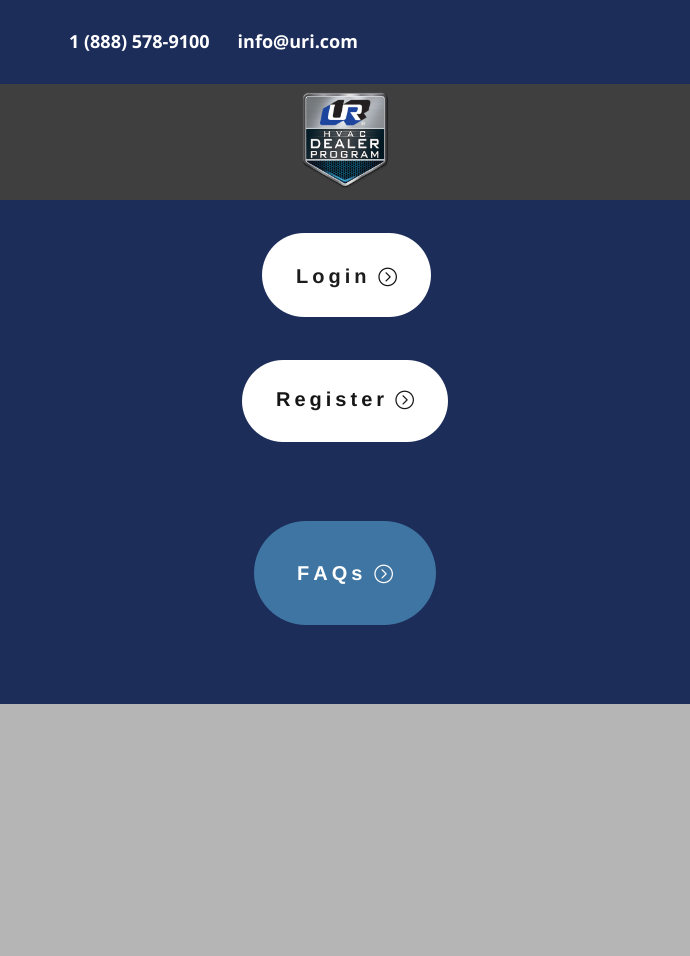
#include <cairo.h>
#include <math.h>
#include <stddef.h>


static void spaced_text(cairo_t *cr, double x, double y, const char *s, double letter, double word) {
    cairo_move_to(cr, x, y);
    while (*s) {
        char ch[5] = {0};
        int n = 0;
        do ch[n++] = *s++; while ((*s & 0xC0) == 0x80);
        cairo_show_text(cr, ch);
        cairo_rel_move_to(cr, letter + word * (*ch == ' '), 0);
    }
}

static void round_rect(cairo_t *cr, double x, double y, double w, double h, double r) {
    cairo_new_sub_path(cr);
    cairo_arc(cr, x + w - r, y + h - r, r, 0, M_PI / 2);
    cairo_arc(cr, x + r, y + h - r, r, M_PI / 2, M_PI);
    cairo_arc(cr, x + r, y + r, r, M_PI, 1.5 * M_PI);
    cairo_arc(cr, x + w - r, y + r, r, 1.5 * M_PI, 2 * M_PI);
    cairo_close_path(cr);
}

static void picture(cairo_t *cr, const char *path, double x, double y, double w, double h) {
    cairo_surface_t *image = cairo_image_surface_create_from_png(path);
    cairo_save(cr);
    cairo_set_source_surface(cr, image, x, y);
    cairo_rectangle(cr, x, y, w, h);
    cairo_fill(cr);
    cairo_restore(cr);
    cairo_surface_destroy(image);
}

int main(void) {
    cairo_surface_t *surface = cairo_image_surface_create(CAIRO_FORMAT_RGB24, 690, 956);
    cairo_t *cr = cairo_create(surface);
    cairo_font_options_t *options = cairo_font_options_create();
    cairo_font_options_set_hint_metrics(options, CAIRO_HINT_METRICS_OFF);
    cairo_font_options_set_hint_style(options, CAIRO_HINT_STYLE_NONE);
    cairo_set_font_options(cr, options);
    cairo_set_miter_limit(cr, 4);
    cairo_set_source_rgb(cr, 0.71, 0.71, 0.71);
    cairo_paint(cr);
    cairo_set_source_rgb(cr, 0.11, 0.176, 0.353);
    cairo_rectangle(cr, 0, 0, 690, 704);
    cairo_fill(cr);
    cairo_select_font_face(cr, "Open Sans", CAIRO_FONT_SLANT_NORMAL, CAIRO_FONT_WEIGHT_BOLD);
    cairo_set_font_size(cr, 18);
    cairo_set_source_rgb(cr, 1, 1, 1);
    cairo_move_to(cr, 69, 48);
    cairo_show_text(cr, "1 (888) 578-9100      info@uri.com");
    cairo_set_source_rgb(cr, 0.247, 0.247, 0.247);
    cairo_rectangle(cr, 0, 84, 690, 116);
    cairo_fill(cr);
    picture(cr, "img1.png", 302, 92, 86, 96);
    cairo_set_source_rgb(cr, 1, 1, 1);
    round_rect(cr, 272, 243, 149, 64, 32);
    cairo_fill_preserve(cr);
    cairo_set_line_width(cr, 20);
    cairo_stroke(cr);
    cairo_select_font_face(cr, "Liberation Sans", CAIRO_FONT_SLANT_NORMAL, CAIRO_FONT_WEIGHT_BOLD);
    cairo_set_font_size(cr, 20);
    cairo_set_source_rgb(cr, 0.11, 0.11, 0.11);
    spaced_text(cr, 296, 283, "Login", 4, 0);
    picture(cr, "img2.png", 378, 267, 19, 20);
    cairo_set_source_rgb(cr, 1, 1, 1);
    round_rect(cr, 252, 370, 186, 62, 31);
    cairo_fill_preserve(cr);
    cairo_stroke(cr);
    cairo_set_source_rgb(cr, 0.086, 0.086, 0.086);
    spaced_text(cr, 276, 406, "Register", 4, 0);
    picture(cr, "img3.png", 395, 390, 19, 20);
    cairo_set_source_rgb(cr, 0.247, 0.459, 0.635);
    round_rect(cr, 268.5, 535.5, 153, 75, 37.5);
    cairo_fill_preserve(cr);
    cairo_set_line_width(cr, 29);
    cairo_stroke(cr);
    cairo_set_source_rgb(cr, 1, 1, 1);
    spaced_text(cr, 297, 580, "FAQs", 4, 0);
    picture(cr, "img4.png", 374, 564, 19, 20);
    cairo_surface_write_to_png(surface, "page.png");
    cairo_font_options_destroy(options);
    cairo_destroy(cr);
    cairo_surface_destroy(surface);
    return 0;
}
